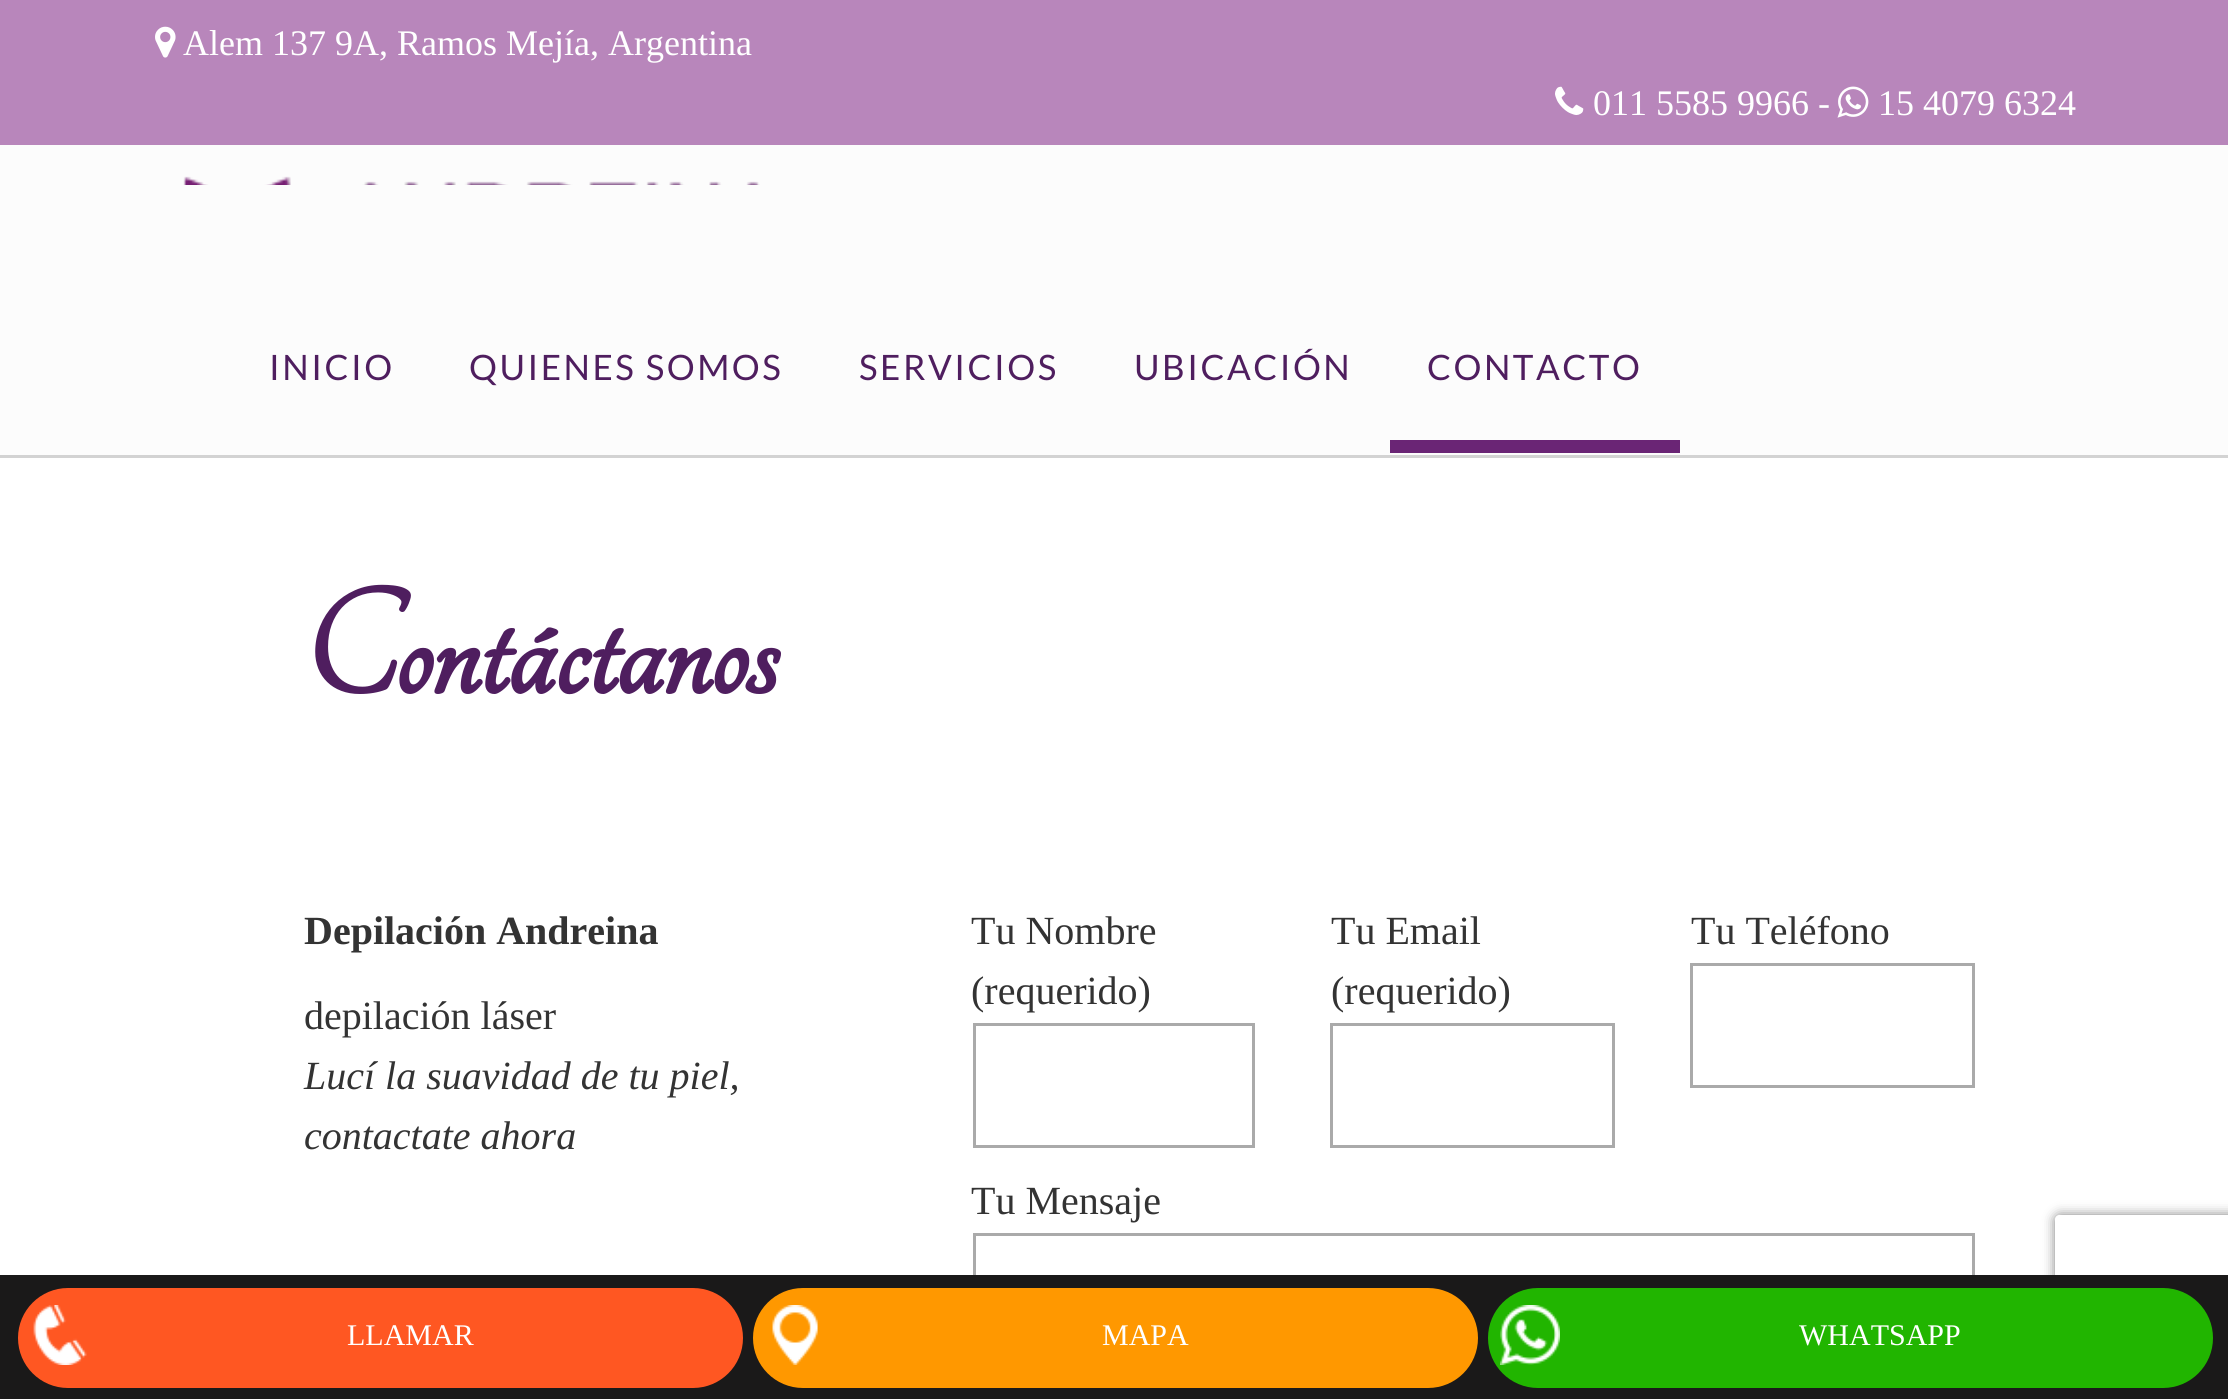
#include <cairo.h>
#include <math.h>
#include <stddef.h>


static void spaced_text(cairo_t *cr, double x, double y, const char *s, double letter, double word) {
    cairo_move_to(cr, x, y);
    while (*s) {
        char ch[5] = {0};
        int n = 0;
        do ch[n++] = *s++; while ((*s & 0xC0) == 0x80);
        cairo_show_text(cr, ch);
        cairo_rel_move_to(cr, letter + word * (*ch == ' '), 0);
    }
}

static void round_rect(cairo_t *cr, double x, double y, double w, double h, double r) {
    cairo_new_sub_path(cr);
    cairo_arc(cr, x + w - r, y + h - r, r, 0, M_PI / 2);
    cairo_arc(cr, x + r, y + h - r, r, M_PI / 2, M_PI);
    cairo_arc(cr, x + r, y + r, r, M_PI, 1.5 * M_PI);
    cairo_arc(cr, x + w - r, y + r, r, 1.5 * M_PI, 2 * M_PI);
    cairo_close_path(cr);
}

static void shadow(cairo_t *cr, double x, double y, double w, double h, double r, double blur, double alpha) {
    cairo_push_group_with_content(cr, CAIRO_CONTENT_ALPHA);
    cairo_set_operator(cr, CAIRO_OPERATOR_SOURCE);
    for (int i = 15; i >= -15 && fmin(w, h) + blur * i / 3 > 0; i -= 2) {
        double e = blur * i / 6;
        cairo_set_source_rgba(cr, 0, 0, 0, alpha * erfc((i - 1) / 8.5) / 2);
        round_rect(cr, x - e, y - e, w + 2 * e, h + 2 * e, fmax(0, fmin(r + e + blur * .6, fmin(w, h) / 2 + e)));
        cairo_fill(cr);
    }
    cairo_pattern_t *soft = cairo_pop_group(cr);
    cairo_mask(cr, soft);
    cairo_pattern_destroy(soft);
}

static void picture(cairo_t *cr, const char *path, double x, double y, double w, double h) {
    cairo_surface_t *image = cairo_image_surface_create_from_png(path);
    cairo_save(cr);
    cairo_set_source_surface(cr, image, x, y);
    cairo_rectangle(cr, x, y, w, h);
    cairo_fill(cr);
    cairo_restore(cr);
    cairo_surface_destroy(image);
}

int main(void) {
    cairo_surface_t *surface = cairo_image_surface_create(CAIRO_FORMAT_RGB24, 2228, 1399);
    cairo_t *cr = cairo_create(surface);
    cairo_font_options_t *options = cairo_font_options_create();
    cairo_font_options_set_hint_metrics(options, CAIRO_HINT_METRICS_OFF);
    cairo_font_options_set_hint_style(options, CAIRO_HINT_STYLE_NONE);
    cairo_set_font_options(cr, options);
    cairo_set_miter_limit(cr, 4);
    cairo_set_source_rgb(cr, 1, 1, 1);
    cairo_paint(cr);
    cairo_set_source_rgb(cr, 0.722, 0.525, 0.733);
    cairo_rectangle(cr, 0, 0, 2228, 145);
    cairo_fill(cr);
    picture(cr, "img1.png", 155, 26, 21, 32);
    cairo_select_font_face(cr, "Liberation Serif", CAIRO_FONT_SLANT_NORMAL, CAIRO_FONT_WEIGHT_NORMAL);
    cairo_set_font_size(cr, 36);
    cairo_set_source_rgb(cr, 1, 1, 1);
    cairo_move_to(cr, 183, 55);
    cairo_show_text(cr, "Alem 137 9A, Ramos Mejía, Argentina");
    picture(cr, "img2.png", 1555, 86, 29, 29);
    cairo_move_to(cr, 1593, 115);
    cairo_show_text(cr, "011 5585 9966 -");
    picture(cr, "img3.png", 1837, 86, 32, 32);
    cairo_move_to(cr, 1878, 115);
    cairo_show_text(cr, "15 4079 6324");
    cairo_set_source_rgb(cr, 0.988, 0.988, 0.988);
    cairo_rectangle(cr, 0, 145, 2228, 310);
    cairo_fill(cr);
    cairo_set_source_rgb(cr, 0.827, 0.827, 0.827);
    cairo_rectangle(cr, 0, 455, 2228, 3);
    cairo_fill(cr);
    picture(cr, "img4.png", 183, 176, 577, 9);
    cairo_select_font_face(cr, "Lato", CAIRO_FONT_SLANT_NORMAL, CAIRO_FONT_WEIGHT_NORMAL);
    cairo_set_font_size(cr, 35);
    cairo_set_source_rgb(cr, 0.31, 0.118, 0.373);
    spaced_text(cr, 269, 380, "INICIO", 2.5, 0);
    spaced_text(cr, 469, 380, "QUIENES SOMOS", 2.5, 0);
    spaced_text(cr, 859, 380, "SERVICIOS", 2.5, 0);
    spaced_text(cr, 1134, 380, "UBICACIÓN", 2.5, 0);
    cairo_set_source_rgb(cr, 0.416, 0.145, 0.459);
    cairo_rectangle(cr, 1390, 440, 290, 13);
    cairo_fill(cr);
    cairo_set_source_rgb(cr, 0.31, 0.118, 0.373);
    spaced_text(cr, 1427, 380, "CONTACTO", 2.5, 0);
    cairo_select_font_face(cr, "Tangerine", CAIRO_FONT_SLANT_NORMAL, CAIRO_FONT_WEIGHT_BOLD);
    cairo_set_font_size(cr, 162.5);
    cairo_move_to(cr, 304, 694);
    cairo_show_text(cr, "Contáctanos");
    cairo_select_font_face(cr, "Liberation Serif", CAIRO_FONT_SLANT_NORMAL, CAIRO_FONT_WEIGHT_BOLD);
    cairo_set_font_size(cr, 40);
    cairo_set_source_rgb(cr, 0.2, 0.2, 0.2);
    cairo_move_to(cr, 304, 944);
    cairo_show_text(cr, "Depilación Andreina");
    cairo_select_font_face(cr, "Liberation Serif", CAIRO_FONT_SLANT_NORMAL, CAIRO_FONT_WEIGHT_NORMAL);
    cairo_move_to(cr, 304, 1029);
    cairo_show_text(cr, "depilación láser");
    cairo_select_font_face(cr, "Liberation Serif", CAIRO_FONT_SLANT_ITALIC, CAIRO_FONT_WEIGHT_NORMAL);
    cairo_move_to(cr, 304, 1089);
    cairo_show_text(cr, "Lucí la suavidad de tu piel,");
    cairo_move_to(cr, 304, 1149);
    cairo_show_text(cr, "contactate ahora");
    cairo_select_font_face(cr, "Liberation Serif", CAIRO_FONT_SLANT_NORMAL, CAIRO_FONT_WEIGHT_NORMAL);
    cairo_move_to(cr, 971, 944);
    cairo_show_text(cr, "Tu Nombre");
    cairo_move_to(cr, 971, 1004);
    cairo_show_text(cr, "(requerido)");
    cairo_rectangle(cr, 974.5, 1024.5, 279, 122);
    cairo_set_source_rgb(cr, 0.667, 0.667, 0.667);
    cairo_set_line_width(cr, 3);
    cairo_stroke(cr);
    cairo_set_source_rgb(cr, 0.2, 0.2, 0.2);
    cairo_move_to(cr, 1331, 944);
    cairo_show_text(cr, "Tu Email");
    cairo_move_to(cr, 1331, 1004);
    cairo_show_text(cr, "(requerido)");
    cairo_rectangle(cr, 1331.5, 1024.5, 282, 122);
    cairo_set_source_rgb(cr, 0.667, 0.667, 0.667);
    cairo_stroke(cr);
    cairo_set_source_rgb(cr, 0.2, 0.2, 0.2);
    cairo_move_to(cr, 1691, 944);
    cairo_show_text(cr, "Tu Teléfono");
    cairo_rectangle(cr, 1691.5, 964.5, 282, 122);
    cairo_set_source_rgb(cr, 0.667, 0.667, 0.667);
    cairo_stroke(cr);
    cairo_set_source_rgb(cr, 0.2, 0.2, 0.2);
    cairo_move_to(cr, 971, 1214);
    cairo_show_text(cr, "Tu Mensaje");
    cairo_rectangle(cr, 974.5, 1234.5, 999, 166);
    cairo_set_source_rgb(cr, 0.667, 0.667, 0.667);
    cairo_stroke(cr);
    cairo_save(cr);
    cairo_set_fill_rule(cr, CAIRO_FILL_RULE_EVEN_ODD);
    cairo_new_path(cr);
    cairo_move_to(cr, 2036, 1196);
    cairo_line_to(cr, 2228, 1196);
    cairo_line_to(cr, 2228, 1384);
    cairo_line_to(cr, 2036, 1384);
    cairo_close_path(cr);
    cairo_move_to(cr, 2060, 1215);
    cairo_line_to(cr, 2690, 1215);
    cairo_curve_to(cr, 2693, 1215, 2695, 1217, 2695, 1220);
    cairo_line_to(cr, 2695, 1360);
    cairo_curve_to(cr, 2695, 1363, 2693, 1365, 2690, 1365);
    cairo_line_to(cr, 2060, 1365);
    cairo_curve_to(cr, 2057, 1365, 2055, 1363, 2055, 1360);
    cairo_line_to(cr, 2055, 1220);
    cairo_curve_to(cr, 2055, 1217, 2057, 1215, 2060, 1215);
    cairo_close_path(cr);
    cairo_clip(cr);
    cairo_set_source_rgb(cr, 0.502, 0.502, 0.502);
    shadow(cr, 2055, 1215, 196, 150, 5, 6, 1);
    cairo_restore(cr);
    cairo_set_source_rgb(cr, 0.102, 0.098, 0.098);
    cairo_rectangle(cr, 0, 1275, 2228, 124);
    cairo_fill(cr);
    cairo_set_source_rgb(cr, 1, 0.341, 0.133);
    round_rect(cr, 18, 1288, 725, 100, 50);
    cairo_fill(cr);
    picture(cr, "img5.png", 33, 1305, 54, 60);
    cairo_set_font_size(cr, 30);
    cairo_set_source_rgb(cr, 1, 1, 1);
    cairo_move_to(cr, 347, 1345);
    cairo_show_text(cr, "LLAMAR");
    cairo_set_source_rgb(cr, 1, 0.596, 0);
    round_rect(cr, 753, 1288, 725, 100, 50);
    cairo_fill(cr);
    picture(cr, "img6.png", 772, 1305, 46, 60);
    cairo_set_source_rgb(cr, 1, 1, 1);
    cairo_move_to(cr, 1102, 1345);
    cairo_show_text(cr, "MAPA");
    cairo_set_source_rgb(cr, 0.129, 0.71, 0);
    round_rect(cr, 1488, 1288, 725, 100, 50);
    cairo_fill(cr);
    picture(cr, "img7.png", 1500, 1305, 60, 60);
    cairo_set_source_rgb(cr, 1, 1, 1);
    cairo_move_to(cr, 1799, 1345);
    cairo_show_text(cr, "WHATSAPP");
    cairo_surface_write_to_png(surface, "page.png");
    cairo_font_options_destroy(options);
    cairo_destroy(cr);
    cairo_surface_destroy(surface);
    return 0;
}
